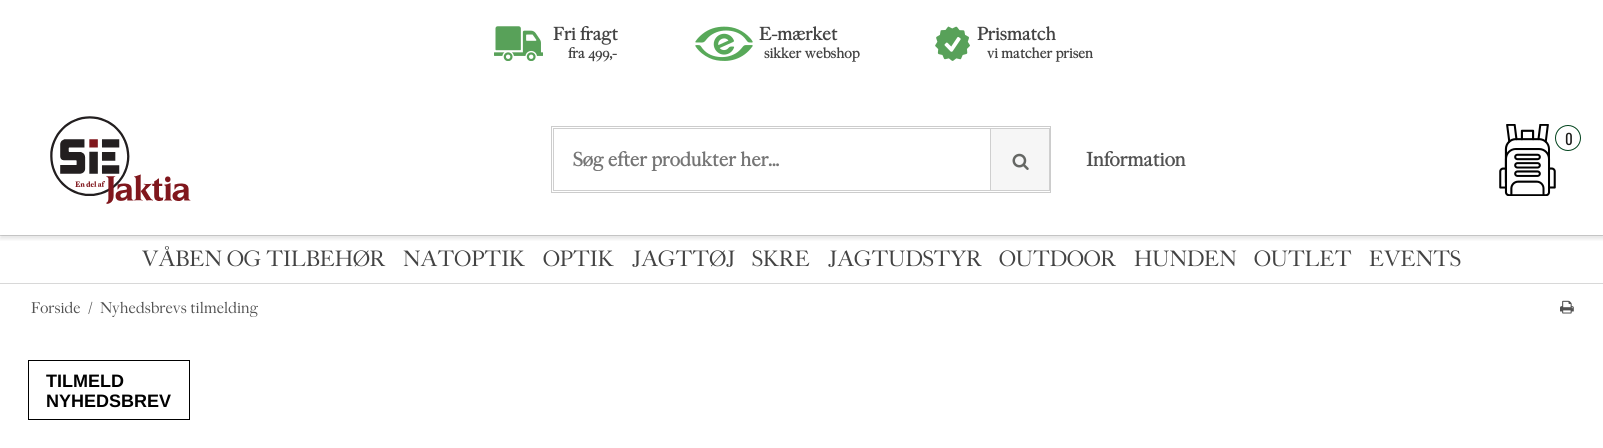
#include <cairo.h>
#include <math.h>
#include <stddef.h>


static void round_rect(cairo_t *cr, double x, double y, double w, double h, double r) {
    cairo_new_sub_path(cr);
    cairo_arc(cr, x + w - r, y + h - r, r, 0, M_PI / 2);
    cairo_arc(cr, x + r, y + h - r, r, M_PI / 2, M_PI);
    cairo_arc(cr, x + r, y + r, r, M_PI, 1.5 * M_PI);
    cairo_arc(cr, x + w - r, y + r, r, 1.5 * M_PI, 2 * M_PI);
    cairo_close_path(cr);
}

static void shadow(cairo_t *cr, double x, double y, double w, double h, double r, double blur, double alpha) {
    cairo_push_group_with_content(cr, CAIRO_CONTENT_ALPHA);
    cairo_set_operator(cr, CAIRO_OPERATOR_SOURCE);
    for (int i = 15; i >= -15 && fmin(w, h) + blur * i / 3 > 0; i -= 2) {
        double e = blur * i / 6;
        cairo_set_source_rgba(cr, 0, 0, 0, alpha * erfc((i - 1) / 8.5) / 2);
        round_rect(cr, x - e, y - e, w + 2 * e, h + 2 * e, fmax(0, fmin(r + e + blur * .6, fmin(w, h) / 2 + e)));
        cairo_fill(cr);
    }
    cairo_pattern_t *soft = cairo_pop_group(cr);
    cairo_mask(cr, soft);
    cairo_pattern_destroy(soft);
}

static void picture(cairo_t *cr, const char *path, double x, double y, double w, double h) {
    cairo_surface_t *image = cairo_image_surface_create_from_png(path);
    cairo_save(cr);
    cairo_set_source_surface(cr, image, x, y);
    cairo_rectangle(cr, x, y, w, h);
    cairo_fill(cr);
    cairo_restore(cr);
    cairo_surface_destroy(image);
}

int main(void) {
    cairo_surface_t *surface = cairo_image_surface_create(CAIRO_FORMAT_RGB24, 1603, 448);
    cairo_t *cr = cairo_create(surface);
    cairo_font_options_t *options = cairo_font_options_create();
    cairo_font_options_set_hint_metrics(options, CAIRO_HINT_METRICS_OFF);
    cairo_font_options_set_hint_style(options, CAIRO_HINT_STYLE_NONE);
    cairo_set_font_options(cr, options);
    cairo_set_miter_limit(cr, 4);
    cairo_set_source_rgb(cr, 1, 1, 1);
    cairo_paint(cr);
    picture(cr, "img1.png", 494, 26, 49, 35);
    cairo_select_font_face(cr, "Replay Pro", CAIRO_FONT_SLANT_NORMAL, CAIRO_FONT_WEIGHT_BOLD);
    cairo_set_font_size(cr, 17.5);
    cairo_set_source_rgb(cr, 0.263, 0.263, 0.263);
    cairo_move_to(cr, 553, 40);
    cairo_show_text(cr, "Fri fragt");
    cairo_set_font_size(cr, 13.75);
    cairo_move_to(cr, 568, 58);
    cairo_show_text(cr, "fra 499,-");
    picture(cr, "img2.png", 695, 26, 58, 35);
    cairo_set_font_size(cr, 17.5);
    cairo_move_to(cr, 759, 40);
    cairo_show_text(cr, "E-mærket");
    cairo_set_font_size(cr, 13.75);
    cairo_move_to(cr, 764, 58);
    cairo_show_text(cr, "sikker webshop");
    picture(cr, "img3.png", 935, 26, 35, 35);
    cairo_set_font_size(cr, 17.5);
    cairo_move_to(cr, 977, 40);
    cairo_show_text(cr, "Prismatch");
    cairo_set_font_size(cr, 13.75);
    cairo_move_to(cr, 987, 58);
    cairo_show_text(cr, "vi matcher prisen");
    cairo_set_source_rgb(cr, 0.847, 0.847, 0.847);
    cairo_rectangle(cr, 0, 235, 1603, 1);
    cairo_fill(cr);
    cairo_save(cr);
    cairo_rectangle(cr, 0, 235, 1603, 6);
    cairo_clip(cr);
    cairo_set_source_rgb(cr, 0, 0, 0);
    shadow(cr, 0, 88, 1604, 151, 0, 2, 0.1);
    cairo_restore(cr);
    picture(cr, "img4.png", 50, 116, 141, 88);
    cairo_rectangle(cr, 551.5, 126.5, 499, 66);
    cairo_set_source_rgb(cr, 0.8, 0.8, 0.8);
    cairo_set_line_width(cr, 1);
    cairo_stroke(cr);
    cairo_set_source_rgb(cr, 0.812, 0.812, 0.812);
    cairo_rectangle(cr, 553, 128, 438, 1);
    cairo_fill(cr);
    cairo_rectangle(cr, 553, 190, 438, 1);
    cairo_fill(cr);
    cairo_rectangle(cr, 553, 128, 1, 63);
    cairo_fill(cr);
    cairo_save(cr);
    cairo_rectangle(cr, 573, 149, 400, 22);
    cairo_clip(cr);
    cairo_set_font_size(cr, 18.75);
    cairo_set_source_rgb(cr, 0.459, 0.459, 0.459);
    cairo_move_to(cr, 573, 166);
    cairo_show_text(cr, "Søg efter produkter her...");
    cairo_restore(cr);
    cairo_set_source_rgb(cr, 0.961, 0.961, 0.961);
    cairo_rectangle(cr, 990.5, 128.5, 59, 62);
    cairo_fill_preserve(cr);
    cairo_set_source_rgb(cr, 0.812, 0.812, 0.812);
    cairo_stroke(cr);
    picture(cr, "img5.png", 1012, 153, 17, 17);
    picture(cr, "img6.png", 1499, 124, 57, 72);
    cairo_arc(cr, 1568, 138, 12.5, 0, 2 * M_PI);
    cairo_set_source_rgb(cr, 0, 0.259, 0.106);
    cairo_stroke(cr);
    cairo_select_font_face(cr, "Oswald", CAIRO_FONT_SLANT_NORMAL, CAIRO_FONT_WEIGHT_NORMAL);
    cairo_set_font_size(cr, 15);
    cairo_set_source_rgb(cr, 0.114, 0.114, 0.106);
    cairo_move_to(cr, 1565, 145);
    cairo_show_text(cr, "0");
    cairo_select_font_face(cr, "Replay Pro", CAIRO_FONT_SLANT_NORMAL, CAIRO_FONT_WEIGHT_BOLD);
    cairo_set_font_size(cr, 18.75);
    cairo_set_source_rgb(cr, 0.322, 0.322, 0.322);
    cairo_move_to(cr, 1086, 166);
    cairo_show_text(cr, "Information");
    cairo_set_source_rgb(cr, 0.847, 0.847, 0.847);
    cairo_rectangle(cr, 0, 283, 1603, 1);
    cairo_fill(cr);
    cairo_select_font_face(cr, "Replay Pro Light", CAIRO_FONT_SLANT_NORMAL, CAIRO_FONT_WEIGHT_NORMAL);
    cairo_set_font_size(cr, 21.25);
    cairo_set_source_rgb(cr, 0.263, 0.263, 0.263);
    cairo_move_to(cr, 142, 266);
    cairo_show_text(cr, "VÅBEN OG TILBEHØR");
    cairo_move_to(cr, 403, 266);
    cairo_show_text(cr, "NATOPTIK");
    cairo_move_to(cr, 543, 266);
    cairo_show_text(cr, "OPTIK");
    cairo_move_to(cr, 632, 266);
    cairo_show_text(cr, "JAGTTØJ");
    cairo_move_to(cr, 752, 266);
    cairo_show_text(cr, "SKRE");
    cairo_move_to(cr, 828, 266);
    cairo_show_text(cr, "JAGTUDSTYR");
    cairo_move_to(cr, 999, 266);
    cairo_show_text(cr, "OUTDOOR");
    cairo_move_to(cr, 1134, 266);
    cairo_show_text(cr, "HUNDEN");
    cairo_move_to(cr, 1254, 266);
    cairo_show_text(cr, "OUTLET");
    cairo_move_to(cr, 1369, 266);
    cairo_show_text(cr, "EVENTS");
    cairo_set_font_size(cr, 14.9);
    cairo_set_source_rgb(cr, 0.322, 0.322, 0.322);
    cairo_move_to(cr, 31, 313);
    cairo_show_text(cr, "Forside");
    cairo_move_to(cr, 88, 313);
    cairo_show_text(cr, "/");
    cairo_move_to(cr, 100, 313);
    cairo_show_text(cr, "Nyhedsbrevs tilmelding");
    picture(cr, "img7.png", 1560, 300, 14, 14);
    cairo_rectangle(cr, 28.5, 360.5, 161, 59);
    cairo_set_source_rgb(cr, 0, 0, 0);
    cairo_stroke(cr);
    cairo_select_font_face(cr, "Liberation Sans", CAIRO_FONT_SLANT_NORMAL, CAIRO_FONT_WEIGHT_BOLD);
    cairo_set_font_size(cr, 18);
    cairo_move_to(cr, 46, 387);
    cairo_show_text(cr, "TILMELD");
    cairo_move_to(cr, 46, 407);
    cairo_show_text(cr, "NYHEDSBREV");
    cairo_surface_write_to_png(surface, "page.png");
    cairo_font_options_destroy(options);
    cairo_destroy(cr);
    cairo_surface_destroy(surface);
    return 0;
}
